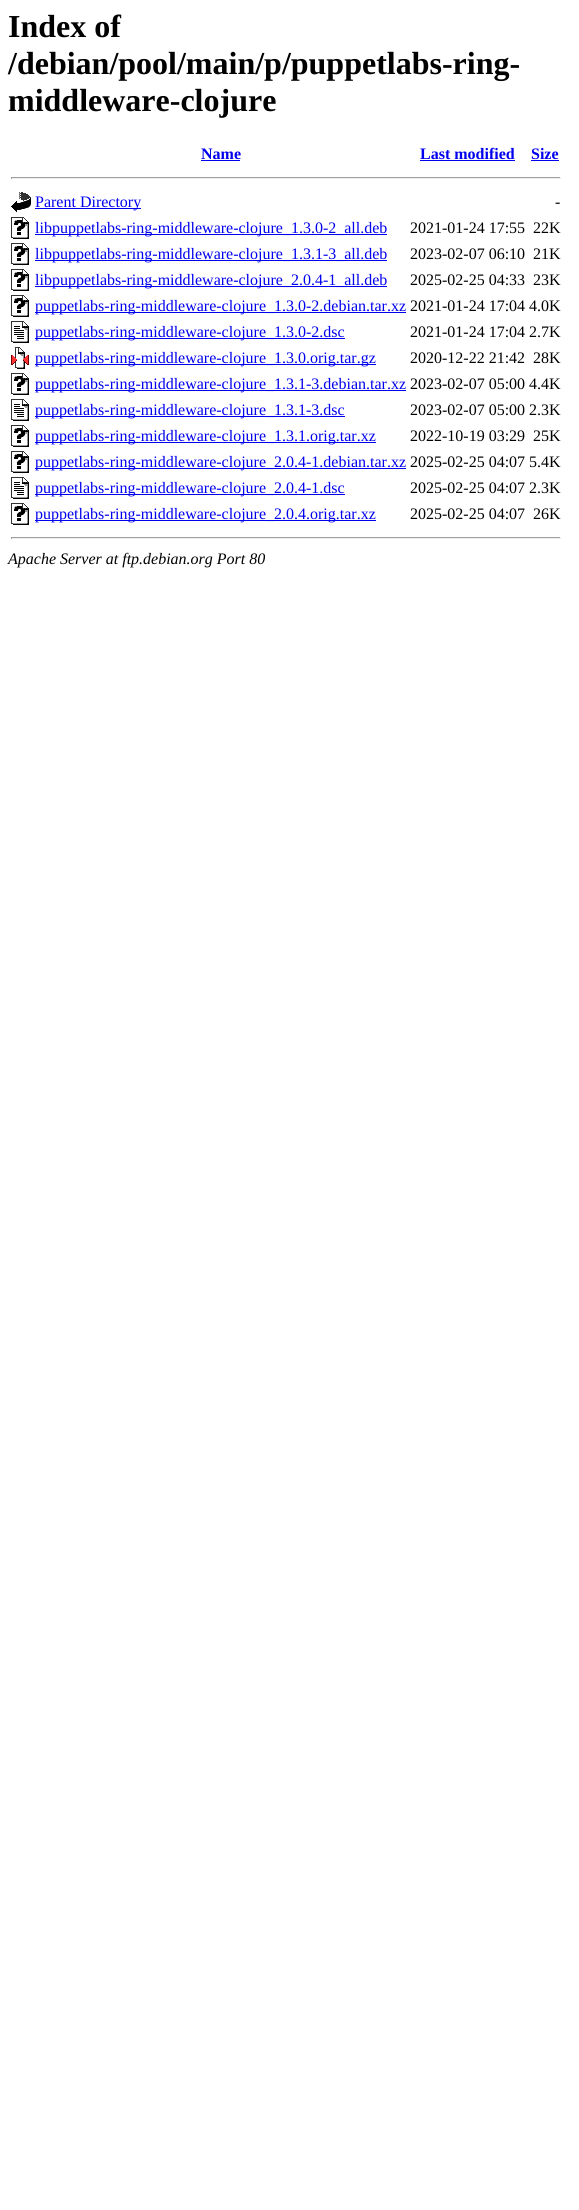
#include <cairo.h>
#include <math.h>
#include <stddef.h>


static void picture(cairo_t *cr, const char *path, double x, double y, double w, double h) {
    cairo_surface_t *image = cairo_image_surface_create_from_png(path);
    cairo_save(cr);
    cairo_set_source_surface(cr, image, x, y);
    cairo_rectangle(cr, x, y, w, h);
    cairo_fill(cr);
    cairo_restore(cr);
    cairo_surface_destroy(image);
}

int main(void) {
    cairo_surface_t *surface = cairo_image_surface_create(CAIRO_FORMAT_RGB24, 579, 2210);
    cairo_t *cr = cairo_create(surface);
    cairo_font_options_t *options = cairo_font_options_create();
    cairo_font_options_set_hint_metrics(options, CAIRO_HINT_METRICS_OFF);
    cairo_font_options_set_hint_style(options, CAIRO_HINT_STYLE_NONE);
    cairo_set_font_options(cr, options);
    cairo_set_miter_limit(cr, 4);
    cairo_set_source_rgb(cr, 1, 1, 1);
    cairo_paint(cr);
    cairo_select_font_face(cr, "Liberation Serif", CAIRO_FONT_SLANT_NORMAL, CAIRO_FONT_WEIGHT_BOLD);
    cairo_set_font_size(cr, 32);
    cairo_set_source_rgb(cr, 0, 0, 0);
    cairo_move_to(cr, 8, 37);
    cairo_show_text(cr, "Index of");
    cairo_move_to(cr, 8, 74);
    cairo_show_text(cr, "/debian/pool/main/p/puppetlabs-ring-");
    cairo_move_to(cr, 8, 111);
    cairo_show_text(cr, "middleware-clojure");
    cairo_set_font_size(cr, 16);
    cairo_set_source_rgb(cr, 0, 0, 0.933);
    cairo_move_to(cr, 201, 159);
    cairo_show_text(cr, "Name");
    cairo_rectangle(cr, 201, 160, 39, 1);
    cairo_fill(cr);
    cairo_move_to(cr, 420, 159);
    cairo_show_text(cr, "Last modified");
    cairo_rectangle(cr, 420, 160, 95, 1);
    cairo_fill(cr);
    cairo_move_to(cr, 531, 159);
    cairo_show_text(cr, "Size");
    cairo_rectangle(cr, 531, 160, 28, 1);
    cairo_fill(cr);
    cairo_set_source_rgb(cr, 0.624, 0.624, 0.624);
    cairo_rectangle(cr, 11, 177, 550, 1);
    cairo_fill(cr);
    cairo_set_source_rgb(cr, 0.933, 0.933, 0.933);
    cairo_rectangle(cr, 560, 177, 1, 2);
    cairo_fill(cr);
    cairo_rectangle(cr, 11, 178, 550, 1);
    cairo_fill(cr);
    cairo_set_source_rgb(cr, 0.624, 0.624, 0.624);
    cairo_rectangle(cr, 11, 177, 1, 2);
    cairo_fill(cr);
    picture(cr, "img1.png", 11, 192, 20, 20);
    cairo_set_source_rgb(cr, 0, 0, 0.933);
    cairo_rectangle(cr, 35, 208, 106, 1);
    cairo_fill(cr);
    cairo_select_font_face(cr, "Liberation Serif", CAIRO_FONT_SLANT_NORMAL, CAIRO_FONT_WEIGHT_NORMAL);
    cairo_move_to(cr, 35, 207);
    cairo_show_text(cr, "Parent Directory");
    cairo_set_source_rgb(cr, 0, 0, 0);
    cairo_move_to(cr, 555, 207);
    cairo_show_text(cr, "-");
    picture(cr, "img2.png", 11, 217, 18, 22);
    cairo_set_source_rgb(cr, 0, 0, 0.933);
    cairo_rectangle(cr, 35, 234, 352, 1);
    cairo_fill(cr);
    cairo_move_to(cr, 35, 233);
    cairo_show_text(cr, "libpuppetlabs-ring-middleware-clojure_1.3.0-2_all.deb");
    cairo_set_source_rgb(cr, 0, 0, 0);
    cairo_move_to(cr, 410, 233);
    cairo_show_text(cr, "2021-01-24 17:55");
    cairo_move_to(cr, 533, 233);
    cairo_show_text(cr, "22K");
    picture(cr, "img2.png", 11, 243, 18, 22);
    cairo_set_source_rgb(cr, 0, 0, 0.933);
    cairo_rectangle(cr, 35, 260, 352, 1);
    cairo_fill(cr);
    cairo_move_to(cr, 35, 259);
    cairo_show_text(cr, "libpuppetlabs-ring-middleware-clojure_1.3.1-3_all.deb");
    cairo_set_source_rgb(cr, 0, 0, 0);
    cairo_move_to(cr, 410, 259);
    cairo_show_text(cr, "2023-02-07 06:10");
    cairo_move_to(cr, 533, 259);
    cairo_show_text(cr, "21K");
    picture(cr, "img2.png", 11, 269, 18, 22);
    cairo_set_source_rgb(cr, 0, 0, 0.933);
    cairo_rectangle(cr, 35, 286, 352, 1);
    cairo_fill(cr);
    cairo_move_to(cr, 35, 285);
    cairo_show_text(cr, "libpuppetlabs-ring-middleware-clojure_2.0.4-1_all.deb");
    cairo_set_source_rgb(cr, 0, 0, 0);
    cairo_move_to(cr, 410, 285);
    cairo_show_text(cr, "2025-02-25 04:33");
    cairo_move_to(cr, 533, 285);
    cairo_show_text(cr, "23K");
    picture(cr, "img2.png", 11, 295, 18, 22);
    cairo_set_source_rgb(cr, 0, 0, 0.933);
    cairo_rectangle(cr, 35, 312, 371, 1);
    cairo_fill(cr);
    cairo_move_to(cr, 35, 311);
    cairo_show_text(cr, "puppetlabs-ring-middleware-clojure_1.3.0-2.debian.tar.xz");
    cairo_set_source_rgb(cr, 0, 0, 0);
    cairo_move_to(cr, 410, 311);
    cairo_show_text(cr, "2021-01-24 17:04 4.0K");
    picture(cr, "img3.png", 11, 321, 18, 22);
    cairo_set_source_rgb(cr, 0, 0, 0.933);
    cairo_rectangle(cr, 35, 338, 310, 1);
    cairo_fill(cr);
    cairo_move_to(cr, 35, 337);
    cairo_show_text(cr, "puppetlabs-ring-middleware-clojure_1.3.0-2.dsc");
    cairo_set_source_rgb(cr, 0, 0, 0);
    cairo_move_to(cr, 410, 337);
    cairo_show_text(cr, "2021-01-24 17:04 2.7K");
    picture(cr, "img4.png", 11, 347, 18, 22);
    cairo_set_source_rgb(cr, 0, 0, 0.933);
    cairo_rectangle(cr, 35, 364, 341, 1);
    cairo_fill(cr);
    cairo_move_to(cr, 35, 363);
    cairo_show_text(cr, "puppetlabs-ring-middleware-clojure_1.3.0.orig.tar.gz");
    cairo_set_source_rgb(cr, 0, 0, 0);
    cairo_move_to(cr, 410, 363);
    cairo_show_text(cr, "2020-12-22 21:42");
    cairo_move_to(cr, 533, 363);
    cairo_show_text(cr, "28K");
    picture(cr, "img2.png", 11, 373, 18, 22);
    cairo_set_source_rgb(cr, 0, 0, 0.933);
    cairo_rectangle(cr, 35, 390, 371, 1);
    cairo_fill(cr);
    cairo_move_to(cr, 35, 389);
    cairo_show_text(cr, "puppetlabs-ring-middleware-clojure_1.3.1-3.debian.tar.xz");
    cairo_set_source_rgb(cr, 0, 0, 0);
    cairo_move_to(cr, 410, 389);
    cairo_show_text(cr, "2023-02-07 05:00 4.4K");
    picture(cr, "img3.png", 11, 399, 18, 22);
    cairo_set_source_rgb(cr, 0, 0, 0.933);
    cairo_rectangle(cr, 35, 416, 310, 1);
    cairo_fill(cr);
    cairo_move_to(cr, 35, 415);
    cairo_show_text(cr, "puppetlabs-ring-middleware-clojure_1.3.1-3.dsc");
    cairo_set_source_rgb(cr, 0, 0, 0);
    cairo_move_to(cr, 410, 415);
    cairo_show_text(cr, "2023-02-07 05:00 2.3K");
    picture(cr, "img2.png", 11, 425, 18, 22);
    cairo_set_source_rgb(cr, 0, 0, 0.933);
    cairo_rectangle(cr, 35, 442, 341, 1);
    cairo_fill(cr);
    cairo_move_to(cr, 35, 441);
    cairo_show_text(cr, "puppetlabs-ring-middleware-clojure_1.3.1.orig.tar.xz");
    cairo_set_source_rgb(cr, 0, 0, 0);
    cairo_move_to(cr, 410, 441);
    cairo_show_text(cr, "2022-10-19 03:29");
    cairo_move_to(cr, 533, 441);
    cairo_show_text(cr, "25K");
    picture(cr, "img2.png", 11, 451, 18, 22);
    cairo_set_source_rgb(cr, 0, 0, 0.933);
    cairo_rectangle(cr, 35, 468, 371, 1);
    cairo_fill(cr);
    cairo_move_to(cr, 35, 467);
    cairo_show_text(cr, "puppetlabs-ring-middleware-clojure_2.0.4-1.debian.tar.xz");
    cairo_set_source_rgb(cr, 0, 0, 0);
    cairo_move_to(cr, 410, 467);
    cairo_show_text(cr, "2025-02-25 04:07 5.4K");
    picture(cr, "img3.png", 11, 477, 18, 22);
    cairo_set_source_rgb(cr, 0, 0, 0.933);
    cairo_rectangle(cr, 35, 494, 310, 1);
    cairo_fill(cr);
    cairo_move_to(cr, 35, 493);
    cairo_show_text(cr, "puppetlabs-ring-middleware-clojure_2.0.4-1.dsc");
    cairo_set_source_rgb(cr, 0, 0, 0);
    cairo_move_to(cr, 410, 493);
    cairo_show_text(cr, "2025-02-25 04:07 2.3K");
    picture(cr, "img2.png", 11, 503, 18, 22);
    cairo_set_source_rgb(cr, 0, 0, 0.933);
    cairo_rectangle(cr, 35, 520, 341, 1);
    cairo_fill(cr);
    cairo_move_to(cr, 35, 519);
    cairo_show_text(cr, "puppetlabs-ring-middleware-clojure_2.0.4.orig.tar.xz");
    cairo_set_source_rgb(cr, 0, 0, 0);
    cairo_move_to(cr, 410, 519);
    cairo_show_text(cr, "2025-02-25 04:07");
    cairo_move_to(cr, 533, 519);
    cairo_show_text(cr, "26K");
    cairo_set_source_rgb(cr, 0.624, 0.624, 0.624);
    cairo_rectangle(cr, 11, 537, 550, 1);
    cairo_fill(cr);
    cairo_set_source_rgb(cr, 0.933, 0.933, 0.933);
    cairo_rectangle(cr, 560, 537, 1, 2);
    cairo_fill(cr);
    cairo_rectangle(cr, 11, 538, 550, 1);
    cairo_fill(cr);
    cairo_set_source_rgb(cr, 0.624, 0.624, 0.624);
    cairo_rectangle(cr, 11, 537, 1, 2);
    cairo_fill(cr);
    cairo_select_font_face(cr, "Liberation Serif", CAIRO_FONT_SLANT_ITALIC, CAIRO_FONT_WEIGHT_NORMAL);
    cairo_set_source_rgb(cr, 0, 0, 0);
    cairo_move_to(cr, 8, 564);
    cairo_show_text(cr, "Apache Server at ftp.debian.org Port 80");
    cairo_surface_write_to_png(surface, "page.png");
    cairo_font_options_destroy(options);
    cairo_destroy(cr);
    cairo_surface_destroy(surface);
    return 0;
}
